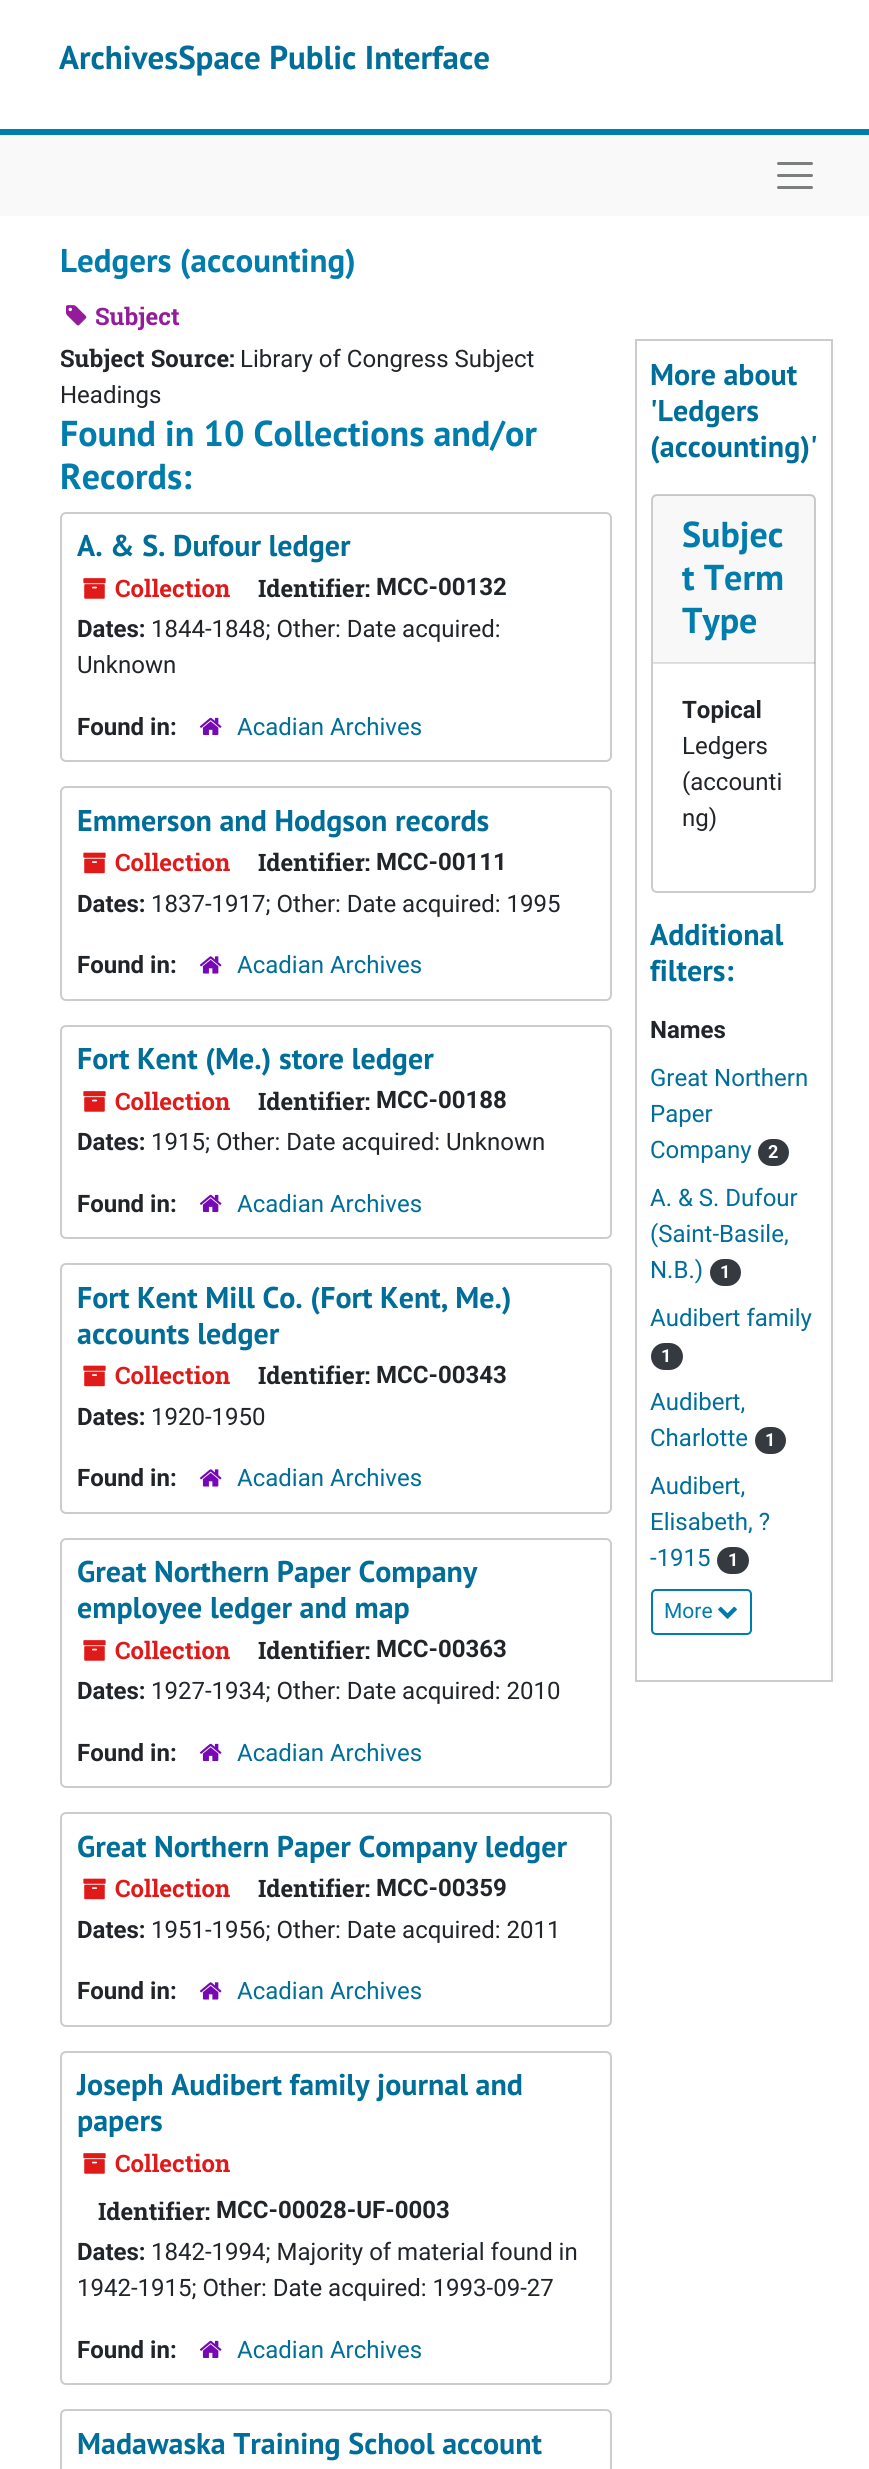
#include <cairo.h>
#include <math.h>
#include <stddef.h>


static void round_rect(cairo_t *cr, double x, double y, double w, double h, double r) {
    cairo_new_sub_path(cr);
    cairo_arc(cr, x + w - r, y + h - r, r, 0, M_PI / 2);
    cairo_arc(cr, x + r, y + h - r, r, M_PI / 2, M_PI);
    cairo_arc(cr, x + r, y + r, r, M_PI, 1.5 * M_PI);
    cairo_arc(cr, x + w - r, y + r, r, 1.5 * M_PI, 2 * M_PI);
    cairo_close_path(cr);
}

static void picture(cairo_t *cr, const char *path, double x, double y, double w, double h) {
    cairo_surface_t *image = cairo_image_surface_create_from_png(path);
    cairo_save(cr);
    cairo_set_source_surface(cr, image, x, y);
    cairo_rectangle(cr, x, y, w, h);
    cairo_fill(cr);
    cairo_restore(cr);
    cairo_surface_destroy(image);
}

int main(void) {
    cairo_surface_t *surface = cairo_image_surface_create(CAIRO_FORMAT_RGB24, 869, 2469);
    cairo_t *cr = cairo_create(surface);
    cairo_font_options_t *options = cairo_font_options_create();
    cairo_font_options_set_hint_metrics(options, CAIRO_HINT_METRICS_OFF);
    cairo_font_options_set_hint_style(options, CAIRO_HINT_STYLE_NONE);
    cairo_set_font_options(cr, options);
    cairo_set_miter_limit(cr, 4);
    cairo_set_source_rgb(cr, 1, 1, 1);
    cairo_paint(cr);
    cairo_set_source_rgb(cr, 0, 0.486, 0.678);
    cairo_rectangle(cr, 0, 129, 869, 6);
    cairo_fill(cr);
    cairo_select_font_face(cr, "PT Sans", CAIRO_FONT_SLANT_NORMAL, CAIRO_FONT_WEIGHT_BOLD);
    cairo_set_font_size(cr, 33);
    cairo_set_source_rgb(cr, 0, 0.431, 0.6);
    cairo_move_to(cr, 59, 69);
    cairo_show_text(cr, "ArchivesSpace Public Interface");
    cairo_set_source_rgb(cr, 0.973, 0.976, 0.98);
    cairo_rectangle(cr, 0, 135, 869, 81);
    cairo_fill(cr);
    cairo_new_path(cr);
    cairo_move_to(cr, 778.5, 163.5);
    cairo_line_to(cr, 811.5, 163.5);
    cairo_move_to(cr, 778.5, 175.5);
    cairo_line_to(cr, 811.5, 175.5);
    cairo_move_to(cr, 778.5, 187.5);
    cairo_line_to(cr, 811.5, 187.5);
    cairo_set_source_rgb(cr, 0.486, 0.49, 0.49);
    cairo_set_line_width(cr, 3);
    cairo_set_line_cap(cr, CAIRO_LINE_CAP_ROUND);
    cairo_stroke(cr);
    cairo_set_source_rgb(cr, 0, 0.486, 0.678);
    cairo_move_to(cr, 60, 272);
    cairo_show_text(cr, "Ledgers (accounting)");
    picture(cr, "img1.png", 66, 305, 21, 21);
    cairo_select_font_face(cr, "Roboto Slab", CAIRO_FONT_SLANT_NORMAL, CAIRO_FONT_WEIGHT_BOLD);
    cairo_set_font_size(cr, 24);
    cairo_set_source_rgb(cr, 0.58, 0.11, 0.604);
    cairo_move_to(cr, 95, 325);
    cairo_show_text(cr, "Subject");
    cairo_set_source_rgb(cr, 0.129, 0.145, 0.161);
    cairo_move_to(cr, 60, 367);
    cairo_show_text(cr, "Subject Source:");
    cairo_select_font_face(cr, "Roboto", CAIRO_FONT_SLANT_NORMAL, CAIRO_FONT_WEIGHT_NORMAL);
    cairo_move_to(cr, 240, 367);
    cairo_show_text(cr, "Library of Congress Subject");
    cairo_move_to(cr, 60, 403);
    cairo_show_text(cr, "Headings");
    cairo_select_font_face(cr, "PT Sans", CAIRO_FONT_SLANT_NORMAL, CAIRO_FONT_WEIGHT_BOLD);
    cairo_set_font_size(cr, 36);
    cairo_set_source_rgb(cr, 0, 0.486, 0.678);
    cairo_move_to(cr, 60, 446);
    cairo_show_text(cr, "Found in 10 Collections and/or");
    cairo_move_to(cr, 60, 489);
    cairo_show_text(cr, "Records:");
    round_rect(cr, 61, 513, 550, 248, 5);
    cairo_set_source_rgb(cr, 0.8, 0.8, 0.8);
    cairo_set_line_width(cr, 2);
    cairo_set_line_cap(cr, CAIRO_LINE_CAP_BUTT);
    cairo_stroke(cr);
    cairo_set_font_size(cr, 30);
    cairo_set_source_rgb(cr, 0, 0.431, 0.6);
    cairo_move_to(cr, 77, 556);
    cairo_show_text(cr, "A. & S. Dufour ledger");
    picture(cr, "img2.png", 83, 578, 23, 21);
    cairo_select_font_face(cr, "Roboto Slab", CAIRO_FONT_SLANT_NORMAL, CAIRO_FONT_WEIGHT_BOLD);
    cairo_set_font_size(cr, 24);
    cairo_set_source_rgb(cr, 0.878, 0.098, 0.098);
    cairo_move_to(cr, 115, 597);
    cairo_show_text(cr, "Collection");
    cairo_set_source_rgb(cr, 0.129, 0.145, 0.161);
    cairo_move_to(cr, 258, 597);
    cairo_show_text(cr, "Identifier:");
    cairo_select_font_face(cr, "Roboto", CAIRO_FONT_SLANT_NORMAL, CAIRO_FONT_WEIGHT_BOLD);
    cairo_move_to(cr, 376, 595);
    cairo_show_text(cr, "MCC-00132");
    cairo_move_to(cr, 77, 637);
    cairo_show_text(cr, "Dates:");
    cairo_select_font_face(cr, "Roboto", CAIRO_FONT_SLANT_NORMAL, CAIRO_FONT_WEIGHT_NORMAL);
    cairo_move_to(cr, 151, 637);
    cairo_show_text(cr, "1844-1848; Other: Date acquired:");
    cairo_move_to(cr, 77, 673);
    cairo_show_text(cr, "Unknown");
    cairo_select_font_face(cr, "Roboto", CAIRO_FONT_SLANT_NORMAL, CAIRO_FONT_WEIGHT_BOLD);
    cairo_move_to(cr, 77, 735);
    cairo_show_text(cr, "Found in:");
    picture(cr, "img3.png", 199, 717, 23, 18);
    cairo_select_font_face(cr, "Roboto", CAIRO_FONT_SLANT_NORMAL, CAIRO_FONT_WEIGHT_NORMAL);
    cairo_set_source_rgb(cr, 0, 0.431, 0.6);
    cairo_move_to(cr, 237, 735);
    cairo_show_text(cr, "Acadian Archives");
    round_rect(cr, 61, 787, 550, 213, 5);
    cairo_set_source_rgb(cr, 0.8, 0.8, 0.8);
    cairo_stroke(cr);
    cairo_select_font_face(cr, "PT Sans", CAIRO_FONT_SLANT_NORMAL, CAIRO_FONT_WEIGHT_BOLD);
    cairo_set_font_size(cr, 30);
    cairo_set_source_rgb(cr, 0, 0.431, 0.6);
    cairo_move_to(cr, 77, 831);
    cairo_show_text(cr, "Emmerson and Hodgson records");
    picture(cr, "img4.png", 83, 852, 23, 22);
    cairo_select_font_face(cr, "Roboto Slab", CAIRO_FONT_SLANT_NORMAL, CAIRO_FONT_WEIGHT_BOLD);
    cairo_set_font_size(cr, 24);
    cairo_set_source_rgb(cr, 0.878, 0.098, 0.098);
    cairo_move_to(cr, 115, 871);
    cairo_show_text(cr, "Collection");
    cairo_set_source_rgb(cr, 0.129, 0.145, 0.161);
    cairo_move_to(cr, 258, 871);
    cairo_show_text(cr, "Identifier:");
    cairo_select_font_face(cr, "Roboto", CAIRO_FONT_SLANT_NORMAL, CAIRO_FONT_WEIGHT_BOLD);
    cairo_move_to(cr, 376, 870);
    cairo_show_text(cr, "MCC-00111");
    cairo_move_to(cr, 77, 912);
    cairo_show_text(cr, "Dates:");
    cairo_select_font_face(cr, "Roboto", CAIRO_FONT_SLANT_NORMAL, CAIRO_FONT_WEIGHT_NORMAL);
    cairo_move_to(cr, 151, 912);
    cairo_show_text(cr, "1837-1917; Other: Date acquired: 1995");
    cairo_select_font_face(cr, "Roboto", CAIRO_FONT_SLANT_NORMAL, CAIRO_FONT_WEIGHT_BOLD);
    cairo_move_to(cr, 77, 973);
    cairo_show_text(cr, "Found in:");
    picture(cr, "img5.png", 199, 956, 23, 18);
    cairo_select_font_face(cr, "Roboto", CAIRO_FONT_SLANT_NORMAL, CAIRO_FONT_WEIGHT_NORMAL);
    cairo_set_source_rgb(cr, 0, 0.431, 0.6);
    cairo_move_to(cr, 237, 973);
    cairo_show_text(cr, "Acadian Archives");
    round_rect(cr, 61, 1026, 550, 212, 5);
    cairo_set_source_rgb(cr, 0.8, 0.8, 0.8);
    cairo_stroke(cr);
    cairo_select_font_face(cr, "PT Sans", CAIRO_FONT_SLANT_NORMAL, CAIRO_FONT_WEIGHT_BOLD);
    cairo_set_font_size(cr, 30);
    cairo_set_source_rgb(cr, 0, 0.431, 0.6);
    cairo_move_to(cr, 77, 1069);
    cairo_show_text(cr, "Fort Kent (Me.) store ledger");
    picture(cr, "img2.png", 83, 1091, 23, 21);
    cairo_select_font_face(cr, "Roboto Slab", CAIRO_FONT_SLANT_NORMAL, CAIRO_FONT_WEIGHT_BOLD);
    cairo_set_font_size(cr, 24);
    cairo_set_source_rgb(cr, 0.878, 0.098, 0.098);
    cairo_move_to(cr, 115, 1110);
    cairo_show_text(cr, "Collection");
    cairo_set_source_rgb(cr, 0.129, 0.145, 0.161);
    cairo_move_to(cr, 258, 1110);
    cairo_show_text(cr, "Identifier:");
    cairo_select_font_face(cr, "Roboto", CAIRO_FONT_SLANT_NORMAL, CAIRO_FONT_WEIGHT_BOLD);
    cairo_move_to(cr, 376, 1108);
    cairo_show_text(cr, "MCC-00188");
    cairo_move_to(cr, 77, 1150);
    cairo_show_text(cr, "Dates:");
    cairo_select_font_face(cr, "Roboto", CAIRO_FONT_SLANT_NORMAL, CAIRO_FONT_WEIGHT_NORMAL);
    cairo_move_to(cr, 151, 1150);
    cairo_show_text(cr, "1915; Other: Date acquired: Unknown");
    cairo_select_font_face(cr, "Roboto", CAIRO_FONT_SLANT_NORMAL, CAIRO_FONT_WEIGHT_BOLD);
    cairo_move_to(cr, 77, 1212);
    cairo_show_text(cr, "Found in:");
    picture(cr, "img3.png", 199, 1194, 23, 18);
    cairo_select_font_face(cr, "Roboto", CAIRO_FONT_SLANT_NORMAL, CAIRO_FONT_WEIGHT_NORMAL);
    cairo_set_source_rgb(cr, 0, 0.431, 0.6);
    cairo_move_to(cr, 237, 1212);
    cairo_show_text(cr, "Acadian Archives");
    round_rect(cr, 61, 1264, 550, 249, 5);
    cairo_set_source_rgb(cr, 0.8, 0.8, 0.8);
    cairo_stroke(cr);
    cairo_select_font_face(cr, "PT Sans", CAIRO_FONT_SLANT_NORMAL, CAIRO_FONT_WEIGHT_BOLD);
    cairo_set_font_size(cr, 30);
    cairo_set_source_rgb(cr, 0, 0.431, 0.6);
    cairo_move_to(cr, 77, 1308);
    cairo_show_text(cr, "Fort Kent Mill Co. (Fort Kent, Me.)");
    cairo_move_to(cr, 77, 1344);
    cairo_show_text(cr, "accounts ledger");
    picture(cr, "img4.png", 83, 1365, 23, 22);
    cairo_select_font_face(cr, "Roboto Slab", CAIRO_FONT_SLANT_NORMAL, CAIRO_FONT_WEIGHT_BOLD);
    cairo_set_font_size(cr, 24);
    cairo_set_source_rgb(cr, 0.878, 0.098, 0.098);
    cairo_move_to(cr, 115, 1384);
    cairo_show_text(cr, "Collection");
    cairo_set_source_rgb(cr, 0.129, 0.145, 0.161);
    cairo_move_to(cr, 258, 1384);
    cairo_show_text(cr, "Identifier:");
    cairo_select_font_face(cr, "Roboto", CAIRO_FONT_SLANT_NORMAL, CAIRO_FONT_WEIGHT_BOLD);
    cairo_move_to(cr, 376, 1383);
    cairo_show_text(cr, "MCC-00343");
    cairo_move_to(cr, 77, 1425);
    cairo_show_text(cr, "Dates:");
    cairo_select_font_face(cr, "Roboto", CAIRO_FONT_SLANT_NORMAL, CAIRO_FONT_WEIGHT_NORMAL);
    cairo_move_to(cr, 151, 1425);
    cairo_show_text(cr, "1920-1950");
    cairo_select_font_face(cr, "Roboto", CAIRO_FONT_SLANT_NORMAL, CAIRO_FONT_WEIGHT_BOLD);
    cairo_move_to(cr, 77, 1486);
    cairo_show_text(cr, "Found in:");
    picture(cr, "img5.png", 199, 1469, 23, 18);
    cairo_select_font_face(cr, "Roboto", CAIRO_FONT_SLANT_NORMAL, CAIRO_FONT_WEIGHT_NORMAL);
    cairo_set_source_rgb(cr, 0, 0.431, 0.6);
    cairo_move_to(cr, 237, 1486);
    cairo_show_text(cr, "Acadian Archives");
    round_rect(cr, 61, 1539, 550, 248, 5);
    cairo_set_source_rgb(cr, 0.8, 0.8, 0.8);
    cairo_stroke(cr);
    cairo_select_font_face(cr, "PT Sans", CAIRO_FONT_SLANT_NORMAL, CAIRO_FONT_WEIGHT_BOLD);
    cairo_set_font_size(cr, 30);
    cairo_set_source_rgb(cr, 0, 0.431, 0.6);
    cairo_move_to(cr, 77, 1582);
    cairo_show_text(cr, "Great Northern Paper Company");
    cairo_move_to(cr, 77, 1618);
    cairo_show_text(cr, "employee ledger and map");
    picture(cr, "img2.png", 83, 1640, 23, 21);
    cairo_select_font_face(cr, "Roboto Slab", CAIRO_FONT_SLANT_NORMAL, CAIRO_FONT_WEIGHT_BOLD);
    cairo_set_font_size(cr, 24);
    cairo_set_source_rgb(cr, 0.878, 0.098, 0.098);
    cairo_move_to(cr, 115, 1659);
    cairo_show_text(cr, "Collection");
    cairo_set_source_rgb(cr, 0.129, 0.145, 0.161);
    cairo_move_to(cr, 258, 1659);
    cairo_show_text(cr, "Identifier:");
    cairo_select_font_face(cr, "Roboto", CAIRO_FONT_SLANT_NORMAL, CAIRO_FONT_WEIGHT_BOLD);
    cairo_move_to(cr, 376, 1657);
    cairo_show_text(cr, "MCC-00363");
    cairo_move_to(cr, 77, 1699);
    cairo_show_text(cr, "Dates:");
    cairo_select_font_face(cr, "Roboto", CAIRO_FONT_SLANT_NORMAL, CAIRO_FONT_WEIGHT_NORMAL);
    cairo_move_to(cr, 151, 1699);
    cairo_show_text(cr, "1927-1934; Other: Date acquired: 2010");
    cairo_select_font_face(cr, "Roboto", CAIRO_FONT_SLANT_NORMAL, CAIRO_FONT_WEIGHT_BOLD);
    cairo_move_to(cr, 77, 1761);
    cairo_show_text(cr, "Found in:");
    picture(cr, "img3.png", 199, 1743, 23, 18);
    cairo_select_font_face(cr, "Roboto", CAIRO_FONT_SLANT_NORMAL, CAIRO_FONT_WEIGHT_NORMAL);
    cairo_set_source_rgb(cr, 0, 0.431, 0.6);
    cairo_move_to(cr, 237, 1761);
    cairo_show_text(cr, "Acadian Archives");
    round_rect(cr, 61, 1813, 550, 213, 5);
    cairo_set_source_rgb(cr, 0.8, 0.8, 0.8);
    cairo_stroke(cr);
    cairo_select_font_face(cr, "PT Sans", CAIRO_FONT_SLANT_NORMAL, CAIRO_FONT_WEIGHT_BOLD);
    cairo_set_font_size(cr, 30);
    cairo_set_source_rgb(cr, 0, 0.431, 0.6);
    cairo_move_to(cr, 77, 1857);
    cairo_show_text(cr, "Great Northern Paper Company ledger");
    picture(cr, "img4.png", 83, 1878, 23, 22);
    cairo_select_font_face(cr, "Roboto Slab", CAIRO_FONT_SLANT_NORMAL, CAIRO_FONT_WEIGHT_BOLD);
    cairo_set_font_size(cr, 24);
    cairo_set_source_rgb(cr, 0.878, 0.098, 0.098);
    cairo_move_to(cr, 115, 1897);
    cairo_show_text(cr, "Collection");
    cairo_set_source_rgb(cr, 0.129, 0.145, 0.161);
    cairo_move_to(cr, 258, 1897);
    cairo_show_text(cr, "Identifier:");
    cairo_select_font_face(cr, "Roboto", CAIRO_FONT_SLANT_NORMAL, CAIRO_FONT_WEIGHT_BOLD);
    cairo_move_to(cr, 376, 1896);
    cairo_show_text(cr, "MCC-00359");
    cairo_move_to(cr, 77, 1938);
    cairo_show_text(cr, "Dates:");
    cairo_select_font_face(cr, "Roboto", CAIRO_FONT_SLANT_NORMAL, CAIRO_FONT_WEIGHT_NORMAL);
    cairo_move_to(cr, 151, 1938);
    cairo_show_text(cr, "1951-1956; Other: Date acquired: 2011");
    cairo_select_font_face(cr, "Roboto", CAIRO_FONT_SLANT_NORMAL, CAIRO_FONT_WEIGHT_BOLD);
    cairo_move_to(cr, 77, 1999);
    cairo_show_text(cr, "Found in:");
    picture(cr, "img5.png", 199, 1982, 23, 18);
    cairo_select_font_face(cr, "Roboto", CAIRO_FONT_SLANT_NORMAL, CAIRO_FONT_WEIGHT_NORMAL);
    cairo_set_source_rgb(cr, 0, 0.431, 0.6);
    cairo_move_to(cr, 237, 1999);
    cairo_show_text(cr, "Acadian Archives");
    round_rect(cr, 61, 2052, 550, 332, 5);
    cairo_set_source_rgb(cr, 0.8, 0.8, 0.8);
    cairo_stroke(cr);
    cairo_select_font_face(cr, "PT Sans", CAIRO_FONT_SLANT_NORMAL, CAIRO_FONT_WEIGHT_BOLD);
    cairo_set_font_size(cr, 30);
    cairo_set_source_rgb(cr, 0, 0.431, 0.6);
    cairo_move_to(cr, 77, 2095);
    cairo_show_text(cr, "Joseph Audibert family journal and");
    cairo_move_to(cr, 77, 2131);
    cairo_show_text(cr, "papers");
    picture(cr, "img2.png", 83, 2153, 23, 21);
    cairo_select_font_face(cr, "Roboto Slab", CAIRO_FONT_SLANT_NORMAL, CAIRO_FONT_WEIGHT_BOLD);
    cairo_set_font_size(cr, 24);
    cairo_set_source_rgb(cr, 0.878, 0.098, 0.098);
    cairo_move_to(cr, 115, 2172);
    cairo_show_text(cr, "Collection");
    cairo_set_source_rgb(cr, 0.129, 0.145, 0.161);
    cairo_move_to(cr, 98, 2220);
    cairo_show_text(cr, "Identifier:");
    cairo_select_font_face(cr, "Roboto", CAIRO_FONT_SLANT_NORMAL, CAIRO_FONT_WEIGHT_BOLD);
    cairo_move_to(cr, 216, 2218);
    cairo_show_text(cr, "MCC-00028-UF-0003");
    cairo_move_to(cr, 77, 2260);
    cairo_show_text(cr, "Dates:");
    cairo_select_font_face(cr, "Roboto", CAIRO_FONT_SLANT_NORMAL, CAIRO_FONT_WEIGHT_NORMAL);
    cairo_move_to(cr, 151, 2260);
    cairo_show_text(cr, "1842-1994; Majority of material found in");
    cairo_move_to(cr, 77, 2296);
    cairo_show_text(cr, "1942-1915; Other: Date acquired: 1993-09-27");
    cairo_select_font_face(cr, "Roboto", CAIRO_FONT_SLANT_NORMAL, CAIRO_FONT_WEIGHT_BOLD);
    cairo_move_to(cr, 77, 2358);
    cairo_show_text(cr, "Found in:");
    picture(cr, "img3.png", 199, 2340, 23, 18);
    cairo_select_font_face(cr, "Roboto", CAIRO_FONT_SLANT_NORMAL, CAIRO_FONT_WEIGHT_NORMAL);
    cairo_set_source_rgb(cr, 0, 0.431, 0.6);
    cairo_move_to(cr, 237, 2358);
    cairo_show_text(cr, "Acadian Archives");
    round_rect(cr, 61, 2410, 550, 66, 5);
    cairo_set_source_rgb(cr, 0.8, 0.8, 0.8);
    cairo_stroke(cr);
    cairo_select_font_face(cr, "PT Sans", CAIRO_FONT_SLANT_NORMAL, CAIRO_FONT_WEIGHT_BOLD);
    cairo_set_font_size(cr, 30);
    cairo_set_source_rgb(cr, 0, 0.431, 0.6);
    cairo_move_to(cr, 77, 2454);
    cairo_show_text(cr, "Madawaska Training School account");
    cairo_rectangle(cr, 636, 340, 196, 1341);
    cairo_set_source_rgb(cr, 0.8, 0.8, 0.8);
    cairo_stroke(cr);
    cairo_set_source_rgb(cr, 0, 0.431, 0.6);
    cairo_move_to(cr, 650, 385);
    cairo_show_text(cr, "More about");
    cairo_move_to(cr, 650, 421);
    cairo_show_text(cr, "'Ledgers");
    cairo_move_to(cr, 650, 457);
    cairo_show_text(cr, "(accounting)'");
    round_rect(cr, 652, 495, 163, 397, 5);
    cairo_set_source_rgb(cr, 0.8, 0.8, 0.8);
    cairo_stroke(cr);
    cairo_set_source_rgba(cr, 0, 0, 0, 0.03);
    cairo_rectangle(cr, 653, 495, 162, 168);
    cairo_fill(cr);
    cairo_set_source_rgba(cr, 0, 0, 0, 0.12);
    cairo_rectangle(cr, 653, 662, 162, 2);
    cairo_fill(cr);
    cairo_set_font_size(cr, 36);
    cairo_set_source_rgb(cr, 0, 0.486, 0.678);
    cairo_move_to(cr, 682, 547);
    cairo_show_text(cr, "Subjec");
    cairo_move_to(cr, 682, 590);
    cairo_show_text(cr, "t Term");
    cairo_move_to(cr, 682, 633);
    cairo_show_text(cr, "Type");
    cairo_select_font_face(cr, "Roboto", CAIRO_FONT_SLANT_NORMAL, CAIRO_FONT_WEIGHT_BOLD);
    cairo_set_font_size(cr, 24);
    cairo_set_source_rgb(cr, 0.129, 0.145, 0.161);
    cairo_move_to(cr, 682, 718);
    cairo_show_text(cr, "Topical");
    cairo_select_font_face(cr, "Roboto", CAIRO_FONT_SLANT_NORMAL, CAIRO_FONT_WEIGHT_NORMAL);
    cairo_move_to(cr, 682, 754);
    cairo_show_text(cr, "Ledgers");
    cairo_move_to(cr, 682, 790);
    cairo_show_text(cr, "(accounti");
    cairo_move_to(cr, 682, 826);
    cairo_show_text(cr, "ng)");
    cairo_select_font_face(cr, "PT Sans", CAIRO_FONT_SLANT_NORMAL, CAIRO_FONT_WEIGHT_BOLD);
    cairo_set_font_size(cr, 30);
    cairo_set_source_rgb(cr, 0, 0.431, 0.6);
    cairo_move_to(cr, 650, 945);
    cairo_show_text(cr, "Additional");
    cairo_move_to(cr, 650, 981);
    cairo_show_text(cr, "filters:");
    cairo_select_font_face(cr, "Roboto", CAIRO_FONT_SLANT_NORMAL, CAIRO_FONT_WEIGHT_BOLD);
    cairo_set_font_size(cr, 24);
    cairo_set_source_rgb(cr, 0.129, 0.145, 0.161);
    cairo_move_to(cr, 650, 1038);
    cairo_show_text(cr, "Names");
    cairo_select_font_face(cr, "Roboto", CAIRO_FONT_SLANT_NORMAL, CAIRO_FONT_WEIGHT_NORMAL);
    cairo_set_source_rgb(cr, 0, 0.431, 0.6);
    cairo_move_to(cr, 650, 1086);
    cairo_show_text(cr, "Great Northern");
    cairo_move_to(cr, 650, 1122);
    cairo_show_text(cr, "Paper");
    cairo_move_to(cr, 650, 1158);
    cairo_show_text(cr, "Company");
    cairo_set_source_rgb(cr, 0.204, 0.227, 0.251);
    round_rect(cr, 758, 1139, 31, 27, 13.5);
    cairo_fill(cr);
    cairo_select_font_face(cr, "Roboto", CAIRO_FONT_SLANT_NORMAL, CAIRO_FONT_WEIGHT_BOLD);
    cairo_set_font_size(cr, 18);
    cairo_set_source_rgb(cr, 1, 1, 1);
    cairo_move_to(cr, 768, 1158);
    cairo_show_text(cr, "2");
    cairo_select_font_face(cr, "Roboto", CAIRO_FONT_SLANT_NORMAL, CAIRO_FONT_WEIGHT_NORMAL);
    cairo_set_font_size(cr, 24);
    cairo_set_source_rgb(cr, 0, 0.431, 0.6);
    cairo_move_to(cr, 650, 1206);
    cairo_show_text(cr, "A. & S. Dufour");
    cairo_move_to(cr, 650, 1242);
    cairo_show_text(cr, "(Saint-Basile,");
    cairo_move_to(cr, 650, 1278);
    cairo_show_text(cr, "N.B.)");
    cairo_set_source_rgb(cr, 0.204, 0.227, 0.251);
    round_rect(cr, 710, 1259, 31, 27, 13.5);
    cairo_fill(cr);
    cairo_select_font_face(cr, "Roboto", CAIRO_FONT_SLANT_NORMAL, CAIRO_FONT_WEIGHT_BOLD);
    cairo_set_font_size(cr, 18);
    cairo_set_source_rgb(cr, 1, 1, 1);
    cairo_move_to(cr, 720, 1278);
    cairo_show_text(cr, "1");
    cairo_select_font_face(cr, "Roboto", CAIRO_FONT_SLANT_NORMAL, CAIRO_FONT_WEIGHT_NORMAL);
    cairo_set_font_size(cr, 24);
    cairo_set_source_rgb(cr, 0, 0.431, 0.6);
    cairo_move_to(cr, 650, 1326);
    cairo_show_text(cr, "Audibert family");
    cairo_set_source_rgb(cr, 0.204, 0.227, 0.251);
    round_rect(cr, 651, 1343, 32, 27, 13.5);
    cairo_fill(cr);
    cairo_select_font_face(cr, "Roboto", CAIRO_FONT_SLANT_NORMAL, CAIRO_FONT_WEIGHT_BOLD);
    cairo_set_font_size(cr, 18);
    cairo_set_source_rgb(cr, 1, 1, 1);
    cairo_move_to(cr, 661, 1362);
    cairo_show_text(cr, "1");
    cairo_select_font_face(cr, "Roboto", CAIRO_FONT_SLANT_NORMAL, CAIRO_FONT_WEIGHT_NORMAL);
    cairo_set_font_size(cr, 24);
    cairo_set_source_rgb(cr, 0, 0.431, 0.6);
    cairo_move_to(cr, 650, 1410);
    cairo_show_text(cr, "Audibert,");
    cairo_move_to(cr, 650, 1446);
    cairo_show_text(cr, "Charlotte");
    cairo_set_source_rgb(cr, 0.204, 0.227, 0.251);
    round_rect(cr, 755, 1427, 31, 27, 13.5);
    cairo_fill(cr);
    cairo_select_font_face(cr, "Roboto", CAIRO_FONT_SLANT_NORMAL, CAIRO_FONT_WEIGHT_BOLD);
    cairo_set_font_size(cr, 18);
    cairo_set_source_rgb(cr, 1, 1, 1);
    cairo_move_to(cr, 765, 1446);
    cairo_show_text(cr, "1");
    cairo_select_font_face(cr, "Roboto", CAIRO_FONT_SLANT_NORMAL, CAIRO_FONT_WEIGHT_NORMAL);
    cairo_set_font_size(cr, 24);
    cairo_set_source_rgb(cr, 0, 0.431, 0.6);
    cairo_move_to(cr, 650, 1494);
    cairo_show_text(cr, "Audibert,");
    cairo_move_to(cr, 650, 1530);
    cairo_show_text(cr, "Elisabeth, ?");
    cairo_move_to(cr, 650, 1566);
    cairo_show_text(cr, "-1915");
    cairo_set_source_rgb(cr, 0.204, 0.227, 0.251);
    round_rect(cr, 717, 1547, 32, 27, 13.5);
    cairo_fill(cr);
    cairo_select_font_face(cr, "Roboto", CAIRO_FONT_SLANT_NORMAL, CAIRO_FONT_WEIGHT_BOLD);
    cairo_set_font_size(cr, 18);
    cairo_set_source_rgb(cr, 1, 1, 1);
    cairo_move_to(cr, 728, 1566);
    cairo_show_text(cr, "1");
    round_rect(cr, 652, 1590, 99, 44, 4);
    cairo_set_source_rgb(cr, 0, 0.486, 0.678);
    cairo_stroke(cr);
    cairo_select_font_face(cr, "Roboto", CAIRO_FONT_SLANT_NORMAL, CAIRO_FONT_WEIGHT_NORMAL);
    cairo_set_font_size(cr, 21);
    cairo_move_to(cr, 664, 1618);
    cairo_show_text(cr, "More");
    picture(cr, "img6.png", 718, 1606, 19, 13);
    cairo_surface_write_to_png(surface, "page.png");
    cairo_font_options_destroy(options);
    cairo_destroy(cr);
    cairo_surface_destroy(surface);
    return 0;
}
